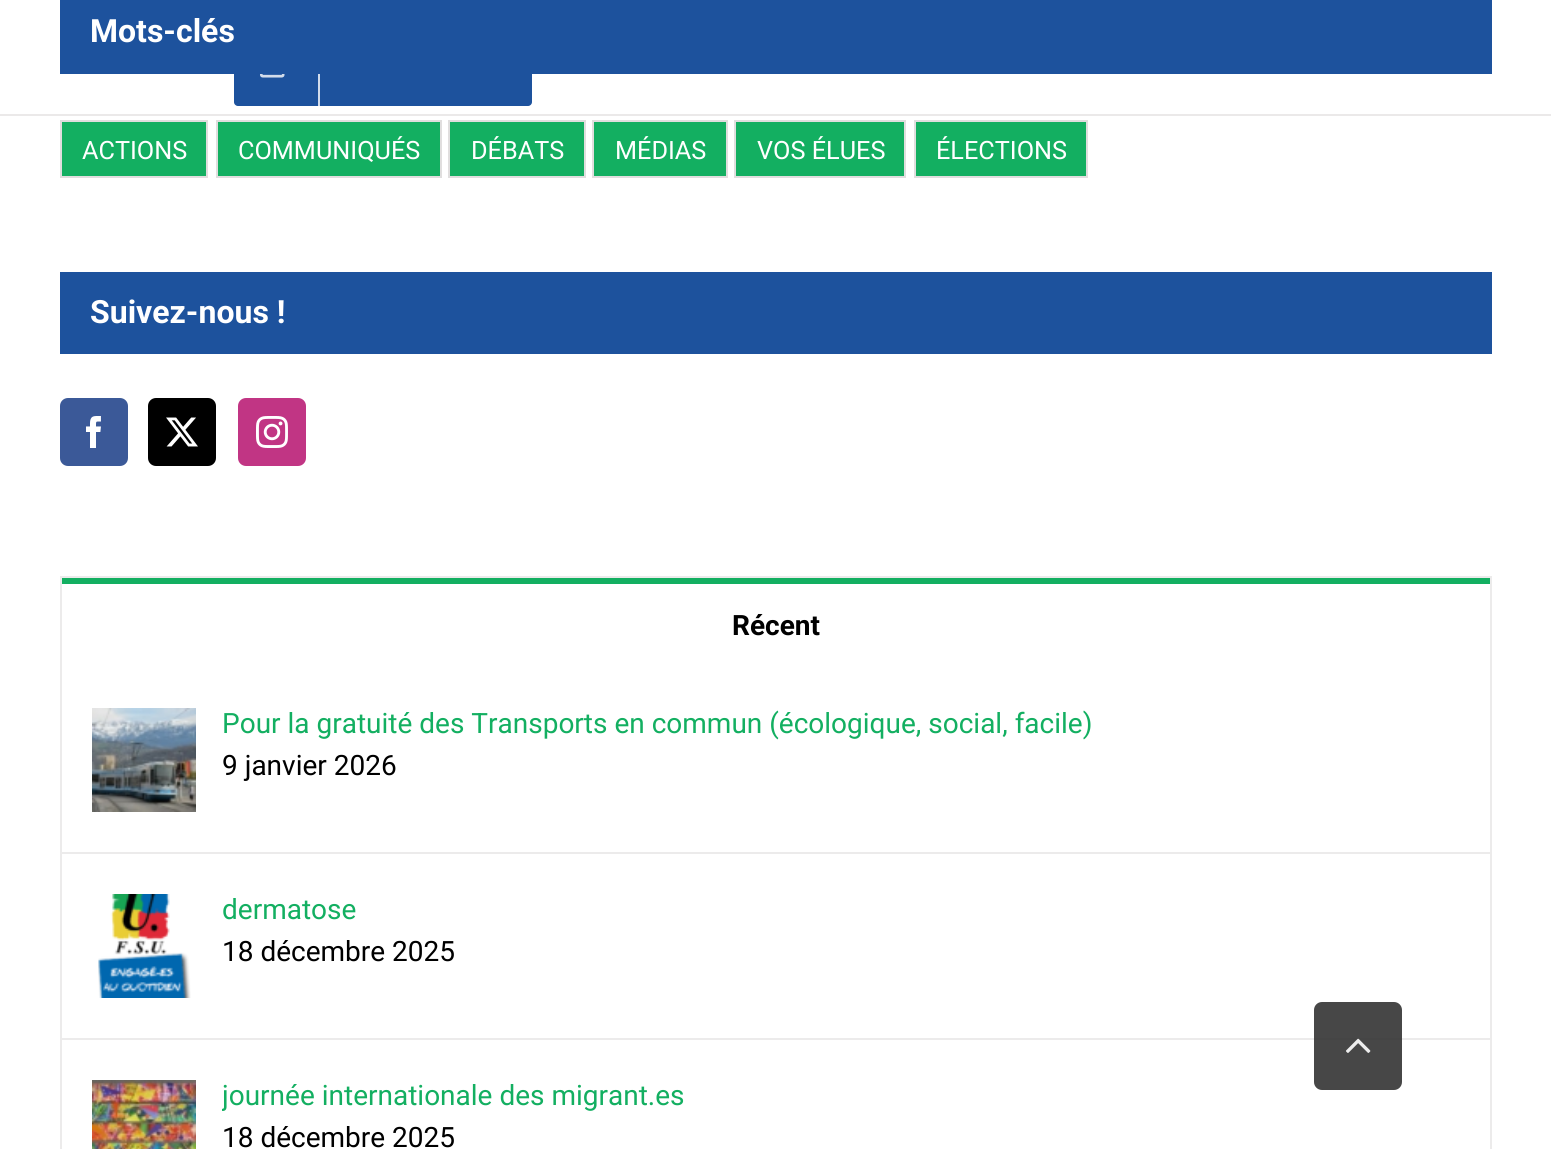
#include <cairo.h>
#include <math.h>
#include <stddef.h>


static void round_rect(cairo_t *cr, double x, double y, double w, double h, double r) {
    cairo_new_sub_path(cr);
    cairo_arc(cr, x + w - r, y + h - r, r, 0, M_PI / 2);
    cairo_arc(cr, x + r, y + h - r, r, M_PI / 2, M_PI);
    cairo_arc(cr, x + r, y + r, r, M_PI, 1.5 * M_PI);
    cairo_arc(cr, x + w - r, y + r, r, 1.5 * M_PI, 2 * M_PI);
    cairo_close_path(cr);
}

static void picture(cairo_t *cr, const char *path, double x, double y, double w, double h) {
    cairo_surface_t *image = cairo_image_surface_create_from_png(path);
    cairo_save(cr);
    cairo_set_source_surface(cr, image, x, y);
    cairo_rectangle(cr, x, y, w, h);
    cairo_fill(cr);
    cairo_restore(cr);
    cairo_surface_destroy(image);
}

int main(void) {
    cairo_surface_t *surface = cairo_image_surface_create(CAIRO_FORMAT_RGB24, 1551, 1149);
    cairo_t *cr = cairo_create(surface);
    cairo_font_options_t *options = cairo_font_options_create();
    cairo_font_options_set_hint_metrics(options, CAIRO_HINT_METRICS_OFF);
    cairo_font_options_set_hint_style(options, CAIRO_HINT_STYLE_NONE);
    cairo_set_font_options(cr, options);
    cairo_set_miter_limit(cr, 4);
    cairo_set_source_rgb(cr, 1, 1, 1);
    cairo_paint(cr);
    cairo_set_source_rgb(cr, 0.114, 0.322, 0.616);
    round_rect(cr, 234, 20, 298, 86, 4);
    cairo_fill(cr);
    cairo_rectangle(cr, 60, 0, 1432, 74);
    cairo_fill(cr);
    cairo_select_font_face(cr, "Roboto", CAIRO_FONT_SLANT_NORMAL, CAIRO_FONT_WEIGHT_BOLD);
    cairo_set_font_size(cr, 32);
    cairo_set_source_rgb(cr, 1, 1, 1);
    cairo_move_to(cr, 90, 42);
    cairo_show_text(cr, "Mots-clés");
    cairo_set_source_rgb(cr, 0.078, 0.686, 0.38);
    cairo_rectangle(cr, 61, 121, 146, 56);
    cairo_fill_preserve(cr);
    cairo_set_source_rgb(cr, 0.878, 0.871, 0.871);
    cairo_stroke(cr);
    cairo_select_font_face(cr, "Roboto", CAIRO_FONT_SLANT_NORMAL, CAIRO_FONT_WEIGHT_NORMAL);
    cairo_set_font_size(cr, 25.25);
    cairo_set_source_rgb(cr, 1, 1, 1);
    cairo_move_to(cr, 82, 159);
    cairo_show_text(cr, "ACTIONS");
    cairo_set_source_rgb(cr, 0.078, 0.686, 0.38);
    cairo_rectangle(cr, 217, 121, 224, 56);
    cairo_fill_preserve(cr);
    cairo_set_source_rgb(cr, 0.878, 0.871, 0.871);
    cairo_stroke(cr);
    cairo_set_source_rgb(cr, 1, 1, 1);
    cairo_move_to(cr, 238, 159);
    cairo_show_text(cr, "COMMUNIQUÉS");
    cairo_set_source_rgb(cr, 0.078, 0.686, 0.38);
    cairo_rectangle(cr, 449, 121, 136, 56);
    cairo_fill_preserve(cr);
    cairo_set_source_rgb(cr, 0.878, 0.871, 0.871);
    cairo_stroke(cr);
    cairo_set_source_rgb(cr, 1, 1, 1);
    cairo_move_to(cr, 471, 159);
    cairo_show_text(cr, "DÉBATS");
    cairo_set_source_rgb(cr, 0.078, 0.686, 0.38);
    cairo_rectangle(cr, 593, 121, 134, 56);
    cairo_fill_preserve(cr);
    cairo_set_source_rgb(cr, 0.878, 0.871, 0.871);
    cairo_stroke(cr);
    cairo_set_source_rgb(cr, 1, 1, 1);
    cairo_move_to(cr, 615, 159);
    cairo_show_text(cr, "MÉDIAS");
    cairo_set_source_rgb(cr, 0.078, 0.686, 0.38);
    cairo_rectangle(cr, 735, 121, 170, 56);
    cairo_fill_preserve(cr);
    cairo_set_source_rgb(cr, 0.878, 0.871, 0.871);
    cairo_stroke(cr);
    cairo_set_source_rgb(cr, 1, 1, 1);
    cairo_move_to(cr, 757, 159);
    cairo_show_text(cr, "VOS ÉLUES");
    cairo_set_source_rgb(cr, 0.078, 0.686, 0.38);
    cairo_rectangle(cr, 915, 121, 172, 56);
    cairo_fill_preserve(cr);
    cairo_set_source_rgb(cr, 0.878, 0.871, 0.871);
    cairo_stroke(cr);
    cairo_set_source_rgb(cr, 1, 1, 1);
    cairo_move_to(cr, 936, 159);
    cairo_show_text(cr, "ÉLECTIONS");
    cairo_set_source_rgb(cr, 0.114, 0.322, 0.616);
    cairo_rectangle(cr, 60, 272, 1432, 82);
    cairo_fill(cr);
    cairo_select_font_face(cr, "Roboto", CAIRO_FONT_SLANT_NORMAL, CAIRO_FONT_WEIGHT_BOLD);
    cairo_set_font_size(cr, 32);
    cairo_set_source_rgb(cr, 1, 1, 1);
    cairo_move_to(cr, 90, 323);
    cairo_show_text(cr, "Suivez-nous !");
    cairo_set_source_rgb(cr, 0.231, 0.349, 0.596);
    round_rect(cr, 61, 399, 66, 66, 7);
    cairo_fill_preserve(cr);
    cairo_stroke(cr);
    picture(cr, "img1.png", 86, 416, 15, 32);
    cairo_set_source_rgb(cr, 0, 0, 0);
    round_rect(cr, 149, 399, 66, 66, 7);
    cairo_fill_preserve(cr);
    cairo_stroke(cr);
    picture(cr, "img2.png", 166, 417, 32, 30);
    cairo_set_source_rgb(cr, 0.757, 0.208, 0.518);
    round_rect(cr, 239, 399, 66, 66, 7);
    cairo_fill_preserve(cr);
    cairo_stroke(cr);
    picture(cr, "img3.png", 256, 416, 32, 32);
    cairo_rectangle(cr, 61, 577, 1430, 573);
    cairo_set_source_rgb(cr, 0.922, 0.918, 0.918);
    cairo_stroke(cr);
    cairo_set_source_rgb(cr, 0.078, 0.686, 0.38);
    cairo_rectangle(cr, 62, 578, 1428, 6);
    cairo_fill(cr);
    cairo_set_font_size(cr, 28);
    cairo_set_source_rgb(cr, 0, 0, 0);
    cairo_move_to(cr, 732, 635);
    cairo_show_text(cr, "Récent");
    cairo_set_source_rgb(cr, 0.922, 0.918, 0.918);
    cairo_rectangle(cr, 62, 852, 1428, 2);
    cairo_fill(cr);
    picture(cr, "img4.png", 92, 708, 104, 104);
    cairo_select_font_face(cr, "Roboto", CAIRO_FONT_SLANT_NORMAL, CAIRO_FONT_WEIGHT_NORMAL);
    cairo_set_source_rgb(cr, 0.078, 0.686, 0.38);
    cairo_move_to(cr, 222, 733);
    cairo_show_text(cr, "Pour la gratuité des Transports en commun (écologique, social, facile)");
    cairo_set_source_rgb(cr, 0, 0, 0);
    cairo_move_to(cr, 222, 775);
    cairo_show_text(cr, "9 janvier 2026");
    cairo_set_source_rgb(cr, 0.922, 0.918, 0.918);
    cairo_rectangle(cr, 62, 1038, 1428, 2);
    cairo_fill(cr);
    picture(cr, "img5.png", 98, 894, 93, 104);
    cairo_set_source_rgb(cr, 0.078, 0.686, 0.38);
    cairo_move_to(cr, 222, 919);
    cairo_show_text(cr, "dermatose");
    cairo_set_source_rgb(cr, 0, 0, 0);
    cairo_move_to(cr, 222, 961);
    cairo_show_text(cr, "18 décembre 2025");
    picture(cr, "img6.png", 92, 1080, 104, 69);
    cairo_save(cr);
    cairo_rectangle(cr, 222, 1080, 1238, 32);
    cairo_clip(cr);
    cairo_set_source_rgb(cr, 0.078, 0.686, 0.38);
    cairo_move_to(cr, 222, 1105);
    cairo_show_text(cr, "journée internationale des migrant.es");
    cairo_restore(cr);
    cairo_move_to(cr, 222, 1147);
    cairo_show_text(cr, "18 décembre 2025");
    cairo_set_source_rgb(cr, 0.918, 0.914, 0.914);
    cairo_rectangle(cr, 0, 114, 1551, 2);
    cairo_fill(cr);
    cairo_set_source_rgb(cr, 0.824, 0.863, 0.922);
    cairo_rectangle(cr, 318, 74, 2, 32);
    cairo_fill(cr);
    picture(cr, "img7.png", 260, 74, 25, 4);
    cairo_set_source_rgba(cr, 0.2, 0.2, 0.2, 0.9);
    round_rect(cr, 1314, 1002, 88, 88, 8);
    cairo_fill(cr);
    picture(cr, "img8.png", 1346, 1038, 25, 15);
    cairo_surface_write_to_png(surface, "page.png");
    cairo_font_options_destroy(options);
    cairo_destroy(cr);
    cairo_surface_destroy(surface);
    return 0;
}
